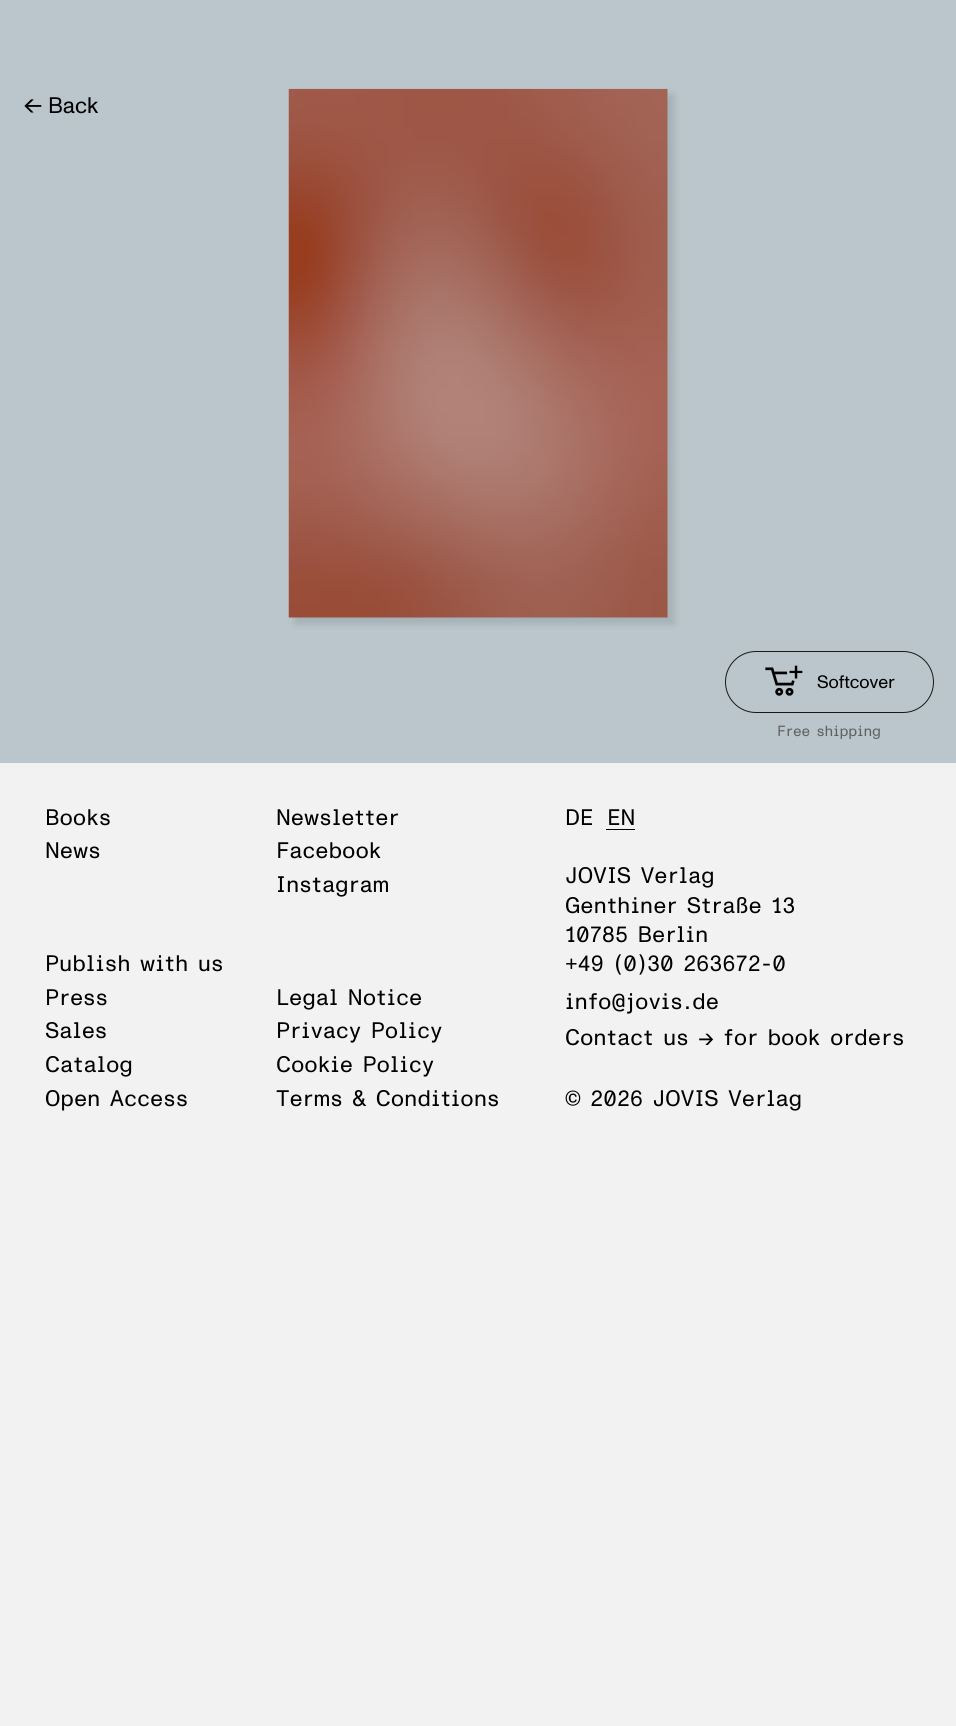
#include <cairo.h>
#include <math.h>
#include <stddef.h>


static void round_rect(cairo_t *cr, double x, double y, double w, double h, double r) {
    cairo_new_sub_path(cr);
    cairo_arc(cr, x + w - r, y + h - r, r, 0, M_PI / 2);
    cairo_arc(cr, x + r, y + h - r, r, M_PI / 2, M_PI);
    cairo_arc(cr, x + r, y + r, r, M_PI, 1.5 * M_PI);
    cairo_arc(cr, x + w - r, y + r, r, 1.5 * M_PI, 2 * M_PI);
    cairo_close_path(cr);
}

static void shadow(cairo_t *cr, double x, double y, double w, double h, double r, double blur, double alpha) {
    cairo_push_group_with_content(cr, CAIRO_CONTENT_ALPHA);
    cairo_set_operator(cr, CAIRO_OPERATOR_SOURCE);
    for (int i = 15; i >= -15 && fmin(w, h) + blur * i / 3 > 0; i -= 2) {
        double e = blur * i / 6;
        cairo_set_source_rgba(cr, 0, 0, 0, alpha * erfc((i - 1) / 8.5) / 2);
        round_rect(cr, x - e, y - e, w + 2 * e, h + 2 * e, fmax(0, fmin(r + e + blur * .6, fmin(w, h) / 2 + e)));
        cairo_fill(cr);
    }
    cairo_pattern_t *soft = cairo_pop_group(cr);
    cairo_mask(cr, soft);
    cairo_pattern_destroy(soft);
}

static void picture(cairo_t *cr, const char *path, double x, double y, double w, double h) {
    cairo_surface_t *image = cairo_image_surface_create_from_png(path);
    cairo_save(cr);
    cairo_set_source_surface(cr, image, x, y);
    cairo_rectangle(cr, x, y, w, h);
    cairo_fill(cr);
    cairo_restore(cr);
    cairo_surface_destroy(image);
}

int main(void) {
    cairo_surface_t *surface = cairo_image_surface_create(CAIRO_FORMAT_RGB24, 956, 1726);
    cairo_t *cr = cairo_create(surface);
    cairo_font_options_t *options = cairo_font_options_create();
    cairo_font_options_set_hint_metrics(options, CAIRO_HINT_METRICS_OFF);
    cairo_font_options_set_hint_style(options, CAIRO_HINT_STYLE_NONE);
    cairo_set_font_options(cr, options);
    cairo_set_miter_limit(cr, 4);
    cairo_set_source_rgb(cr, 0.949, 0.949, 0.949);
    cairo_paint(cr);
    cairo_set_source_rgb(cr, 0.729, 0.776, 0.796);
    cairo_rectangle(cr, 0, 0, 956, 763);
    cairo_fill(cr);
    picture(cr, "img1.png", 24, 99, 18, 14);
    cairo_select_font_face(cr, "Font", CAIRO_FONT_SLANT_NORMAL, CAIRO_FONT_WEIGHT_NORMAL);
    cairo_set_font_size(cr, 22.5);
    cairo_set_source_rgb(cr, 0, 0, 0);
    cairo_move_to(cr, 48, 113);
    cairo_show_text(cr, "Back");
    cairo_set_source_rgb(cr, 0.118, 0.173, 0.188);
    shadow(cr, 295, 95, 379, 529, 0, 4, 0.15);
    picture(cr, "img2.png", 288, 88, 380, 530);
    round_rect(cr, 725.5, 651.5, 208, 61, 30.5);
    cairo_set_source_rgb(cr, 0.094, 0.094, 0.094);
    cairo_set_line_width(cr, 1);
    cairo_stroke(cr);
    picture(cr, "img3.png", 765, 665, 38, 31);
    cairo_set_font_size(cr, 18);
    cairo_set_source_rgb(cr, 0, 0, 0);
    cairo_move_to(cr, 817, 688);
    cairo_show_text(cr, "Softcover");
    cairo_select_font_face(cr, "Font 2", CAIRO_FONT_SLANT_NORMAL, CAIRO_FONT_WEIGHT_NORMAL);
    cairo_set_font_size(cr, 14.75);
    cairo_set_source_rgb(cr, 0.376, 0.376, 0.376);
    cairo_move_to(cr, 777, 736);
    cairo_show_text(cr, "Free shipping");
    cairo_set_font_size(cr, 22.5);
    cairo_set_source_rgb(cr, 0, 0, 0);
    cairo_move_to(cr, 45, 825);
    cairo_show_text(cr, "Books");
    cairo_move_to(cr, 45, 858);
    cairo_show_text(cr, "News");
    cairo_move_to(cr, 45, 971);
    cairo_show_text(cr, "Publish with us");
    cairo_move_to(cr, 45, 1005);
    cairo_show_text(cr, "Press");
    cairo_move_to(cr, 45, 1038);
    cairo_show_text(cr, "Sales");
    cairo_move_to(cr, 45, 1072);
    cairo_show_text(cr, "Catalog");
    cairo_move_to(cr, 45, 1106);
    cairo_show_text(cr, "Open Access");
    cairo_move_to(cr, 276, 825);
    cairo_show_text(cr, "Newsletter");
    cairo_move_to(cr, 276, 858);
    cairo_show_text(cr, "Facebook");
    cairo_move_to(cr, 276, 892);
    cairo_show_text(cr, "Instagram");
    cairo_move_to(cr, 276, 1005);
    cairo_show_text(cr, "Legal Notice");
    cairo_move_to(cr, 276, 1038);
    cairo_show_text(cr, "Privacy Policy");
    cairo_move_to(cr, 276, 1072);
    cairo_show_text(cr, "Cookie Policy");
    cairo_move_to(cr, 276, 1106);
    cairo_show_text(cr, "Terms & Conditions");
    cairo_move_to(cr, 565, 825);
    cairo_show_text(cr, "DE");
    cairo_move_to(cr, 607, 825);
    cairo_show_text(cr, "EN");
    cairo_rectangle(cr, 606, 829, 29, 1);
    cairo_fill(cr);
    cairo_move_to(cr, 565, 883);
    cairo_show_text(cr, "JOVIS Verlag");
    cairo_move_to(cr, 565, 913);
    cairo_show_text(cr, "Genthiner Straße 13");
    cairo_move_to(cr, 565, 942);
    cairo_show_text(cr, "10785 Berlin");
    cairo_move_to(cr, 565, 971);
    cairo_show_text(cr, "+49 (0)30 263672-0");
    cairo_move_to(cr, 565, 1009);
    cairo_show_text(cr, "info@jovis.de");
    cairo_move_to(cr, 565, 1045);
    cairo_show_text(cr, "Contact us → for book orders");
    cairo_move_to(cr, 565, 1106);
    cairo_show_text(cr, "© 2026 JOVIS Verlag");
    cairo_surface_write_to_png(surface, "page.png");
    cairo_font_options_destroy(options);
    cairo_destroy(cr);
    cairo_surface_destroy(surface);
    return 0;
}
